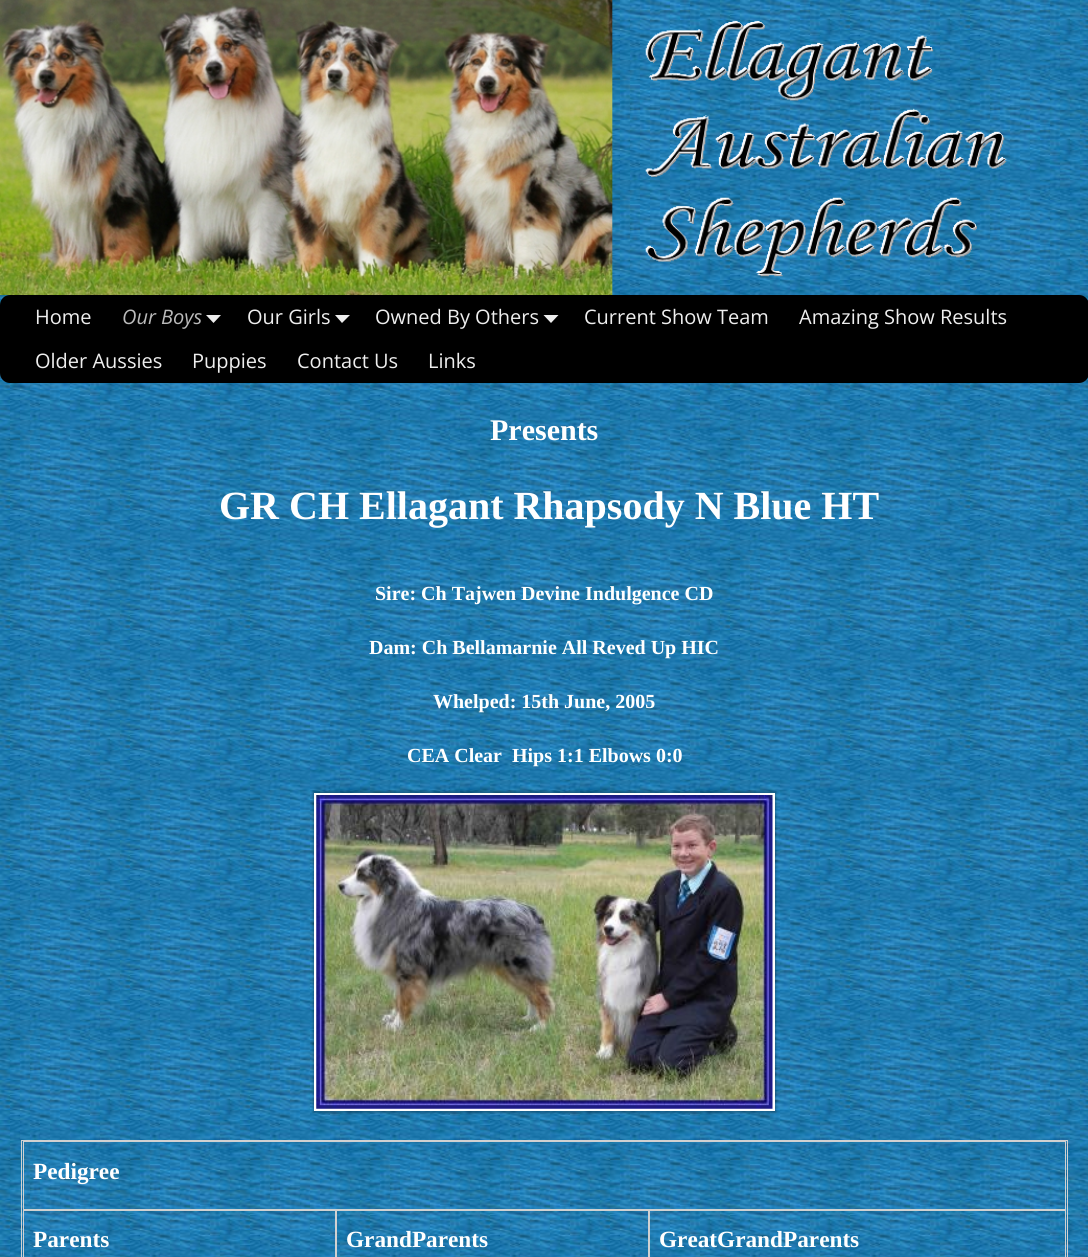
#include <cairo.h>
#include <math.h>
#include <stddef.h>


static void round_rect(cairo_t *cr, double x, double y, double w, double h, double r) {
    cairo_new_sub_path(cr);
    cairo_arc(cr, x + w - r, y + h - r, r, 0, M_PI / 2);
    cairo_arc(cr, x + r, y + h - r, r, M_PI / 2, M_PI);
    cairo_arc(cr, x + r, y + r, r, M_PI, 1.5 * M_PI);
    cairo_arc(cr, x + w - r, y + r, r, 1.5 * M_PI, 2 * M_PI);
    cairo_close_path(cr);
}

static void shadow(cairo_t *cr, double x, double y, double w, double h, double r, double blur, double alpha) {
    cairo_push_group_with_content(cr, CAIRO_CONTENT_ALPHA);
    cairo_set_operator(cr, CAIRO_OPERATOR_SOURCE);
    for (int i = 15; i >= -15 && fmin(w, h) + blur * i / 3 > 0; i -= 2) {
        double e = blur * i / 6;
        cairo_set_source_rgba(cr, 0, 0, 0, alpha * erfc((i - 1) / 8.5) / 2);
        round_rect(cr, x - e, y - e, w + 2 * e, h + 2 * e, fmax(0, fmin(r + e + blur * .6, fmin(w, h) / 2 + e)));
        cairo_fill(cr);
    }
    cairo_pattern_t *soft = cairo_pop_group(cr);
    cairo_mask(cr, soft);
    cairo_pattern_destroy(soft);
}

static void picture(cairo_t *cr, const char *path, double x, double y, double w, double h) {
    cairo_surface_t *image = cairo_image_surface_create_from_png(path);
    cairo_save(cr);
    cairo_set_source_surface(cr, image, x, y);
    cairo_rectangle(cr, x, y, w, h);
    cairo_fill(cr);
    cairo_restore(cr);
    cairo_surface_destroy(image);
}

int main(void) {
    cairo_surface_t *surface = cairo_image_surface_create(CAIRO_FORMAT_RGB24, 1088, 1257);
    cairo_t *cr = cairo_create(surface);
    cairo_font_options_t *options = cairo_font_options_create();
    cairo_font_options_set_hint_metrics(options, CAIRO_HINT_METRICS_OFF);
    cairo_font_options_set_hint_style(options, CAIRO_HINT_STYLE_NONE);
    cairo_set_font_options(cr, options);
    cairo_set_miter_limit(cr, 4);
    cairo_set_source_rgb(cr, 1, 1, 1);
    cairo_paint(cr);
    picture(cr, "img1.png", 0, 0, 1088, 1257);
    picture(cr, "img2.png", 0, 0, 1007, 295);
    cairo_set_source_rgb(cr, 0, 0, 0);
    round_rect(cr, 0, 295, 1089, 88, 10);
    cairo_fill(cr);
    cairo_select_font_face(cr, "Open Sans", CAIRO_FONT_SLANT_NORMAL, CAIRO_FONT_WEIGHT_NORMAL);
    cairo_set_font_size(cr, 20);
    cairo_set_source_rgb(cr, 0.933, 0.933, 0.933);
    cairo_move_to(cr, 35, 324);
    cairo_show_text(cr, "Home");
    cairo_select_font_face(cr, "Open Sans", CAIRO_FONT_SLANT_ITALIC, CAIRO_FONT_WEIGHT_NORMAL);
    cairo_set_source_rgb(cr, 0.729, 0.729, 0.729);
    cairo_move_to(cr, 122, 324);
    cairo_show_text(cr, "Our Boys");
    cairo_set_source_rgb(cr, 0.933, 0.933, 0.933);
    cairo_new_path(cr);
    cairo_move_to(cr, 206, 315);
    cairo_line_to(cr, 221, 315);
    cairo_line_to(cr, 213.5, 323);
    cairo_close_path(cr);
    cairo_fill(cr);
    cairo_select_font_face(cr, "Open Sans", CAIRO_FONT_SLANT_NORMAL, CAIRO_FONT_WEIGHT_NORMAL);
    cairo_move_to(cr, 247, 324);
    cairo_show_text(cr, "Our Girls");
    cairo_new_path(cr);
    cairo_move_to(cr, 335, 315);
    cairo_line_to(cr, 350, 315);
    cairo_line_to(cr, 342, 323);
    cairo_close_path(cr);
    cairo_fill(cr);
    cairo_move_to(cr, 375, 324);
    cairo_show_text(cr, "Owned By Others");
    cairo_new_path(cr);
    cairo_move_to(cr, 543.5, 315);
    cairo_line_to(cr, 558.5, 315);
    cairo_line_to(cr, 551, 323);
    cairo_close_path(cr);
    cairo_fill(cr);
    cairo_move_to(cr, 584, 324);
    cairo_show_text(cr, "Current Show Team");
    cairo_move_to(cr, 799, 324);
    cairo_show_text(cr, "Amazing Show Results");
    cairo_move_to(cr, 35, 368);
    cairo_show_text(cr, "Older Aussies");
    cairo_move_to(cr, 192, 368);
    cairo_show_text(cr, "Puppies");
    cairo_move_to(cr, 297, 368);
    cairo_show_text(cr, "Contact Us");
    cairo_move_to(cr, 428, 368);
    cairo_show_text(cr, "Links");
    cairo_select_font_face(cr, "Liberation Serif", CAIRO_FONT_SLANT_NORMAL, CAIRO_FONT_WEIGHT_BOLD);
    cairo_set_font_size(cr, 30);
    cairo_set_source_rgb(cr, 1, 1, 1);
    cairo_move_to(cr, 490, 440);
    cairo_show_text(cr, "Presents");
    cairo_set_font_size(cr, 40);
    cairo_move_to(cr, 219, 519);
    cairo_show_text(cr, "GR CH Ellagant Rhapsody N Blue HT");
    cairo_set_font_size(cr, 20);
    cairo_move_to(cr, 375, 600);
    cairo_show_text(cr, "Sire: Ch Tajwen Devine Indulgence CD");
    cairo_move_to(cr, 369, 654);
    cairo_show_text(cr, "Dam: Ch Bellamarnie All Reved Up HIC");
    cairo_move_to(cr, 433, 708);
    cairo_show_text(cr, "Whelped: 15th June, 2005");
    cairo_move_to(cr, 407, 762);
    cairo_show_text(cr, "CEA Clear  Hips 1:1 Elbows 0:0");
    cairo_set_source_rgb(cr, 0, 0, 0);
    shadow(cr, 313, 791, 463, 322, 0, 1, 0.25);
    cairo_set_source_rgb(cr, 1, 1, 1);
    cairo_rectangle(cr, 314, 793, 461, 318);
    cairo_fill(cr);
    picture(cr, "img3.png", 316, 795, 457, 314);
    cairo_rectangle(cr, 21.5, 1140.5, 1046, 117);
    cairo_set_source_rgb(cr, 0.82, 0.82, 0.82);
    cairo_set_line_width(cr, 1);
    cairo_stroke(cr);
    cairo_rectangle(cr, 23.5, 1141.5, 1042, 68);
    cairo_stroke(cr);
    cairo_set_font_size(cr, 23.25);
    cairo_set_source_rgb(cr, 1, 1, 1);
    cairo_move_to(cr, 33, 1179);
    cairo_show_text(cr, "Pedigree");
    cairo_rectangle(cr, 23.5, 1210.5, 312, 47);
    cairo_set_source_rgb(cr, 0.82, 0.82, 0.82);
    cairo_stroke(cr);
    cairo_set_source_rgb(cr, 1, 1, 1);
    cairo_move_to(cr, 33, 1247);
    cairo_show_text(cr, "Parents");
    cairo_rectangle(cr, 336.5, 1210.5, 312, 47);
    cairo_set_source_rgb(cr, 0.82, 0.82, 0.82);
    cairo_stroke(cr);
    cairo_set_source_rgb(cr, 1, 1, 1);
    cairo_move_to(cr, 346, 1247);
    cairo_show_text(cr, "GrandParents");
    cairo_rectangle(cr, 649.5, 1210.5, 416, 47);
    cairo_set_source_rgb(cr, 0.82, 0.82, 0.82);
    cairo_stroke(cr);
    cairo_set_source_rgb(cr, 1, 1, 1);
    cairo_move_to(cr, 659, 1247);
    cairo_show_text(cr, "GreatGrandParents");
    cairo_surface_write_to_png(surface, "page.png");
    cairo_font_options_destroy(options);
    cairo_destroy(cr);
    cairo_surface_destroy(surface);
    return 0;
}
